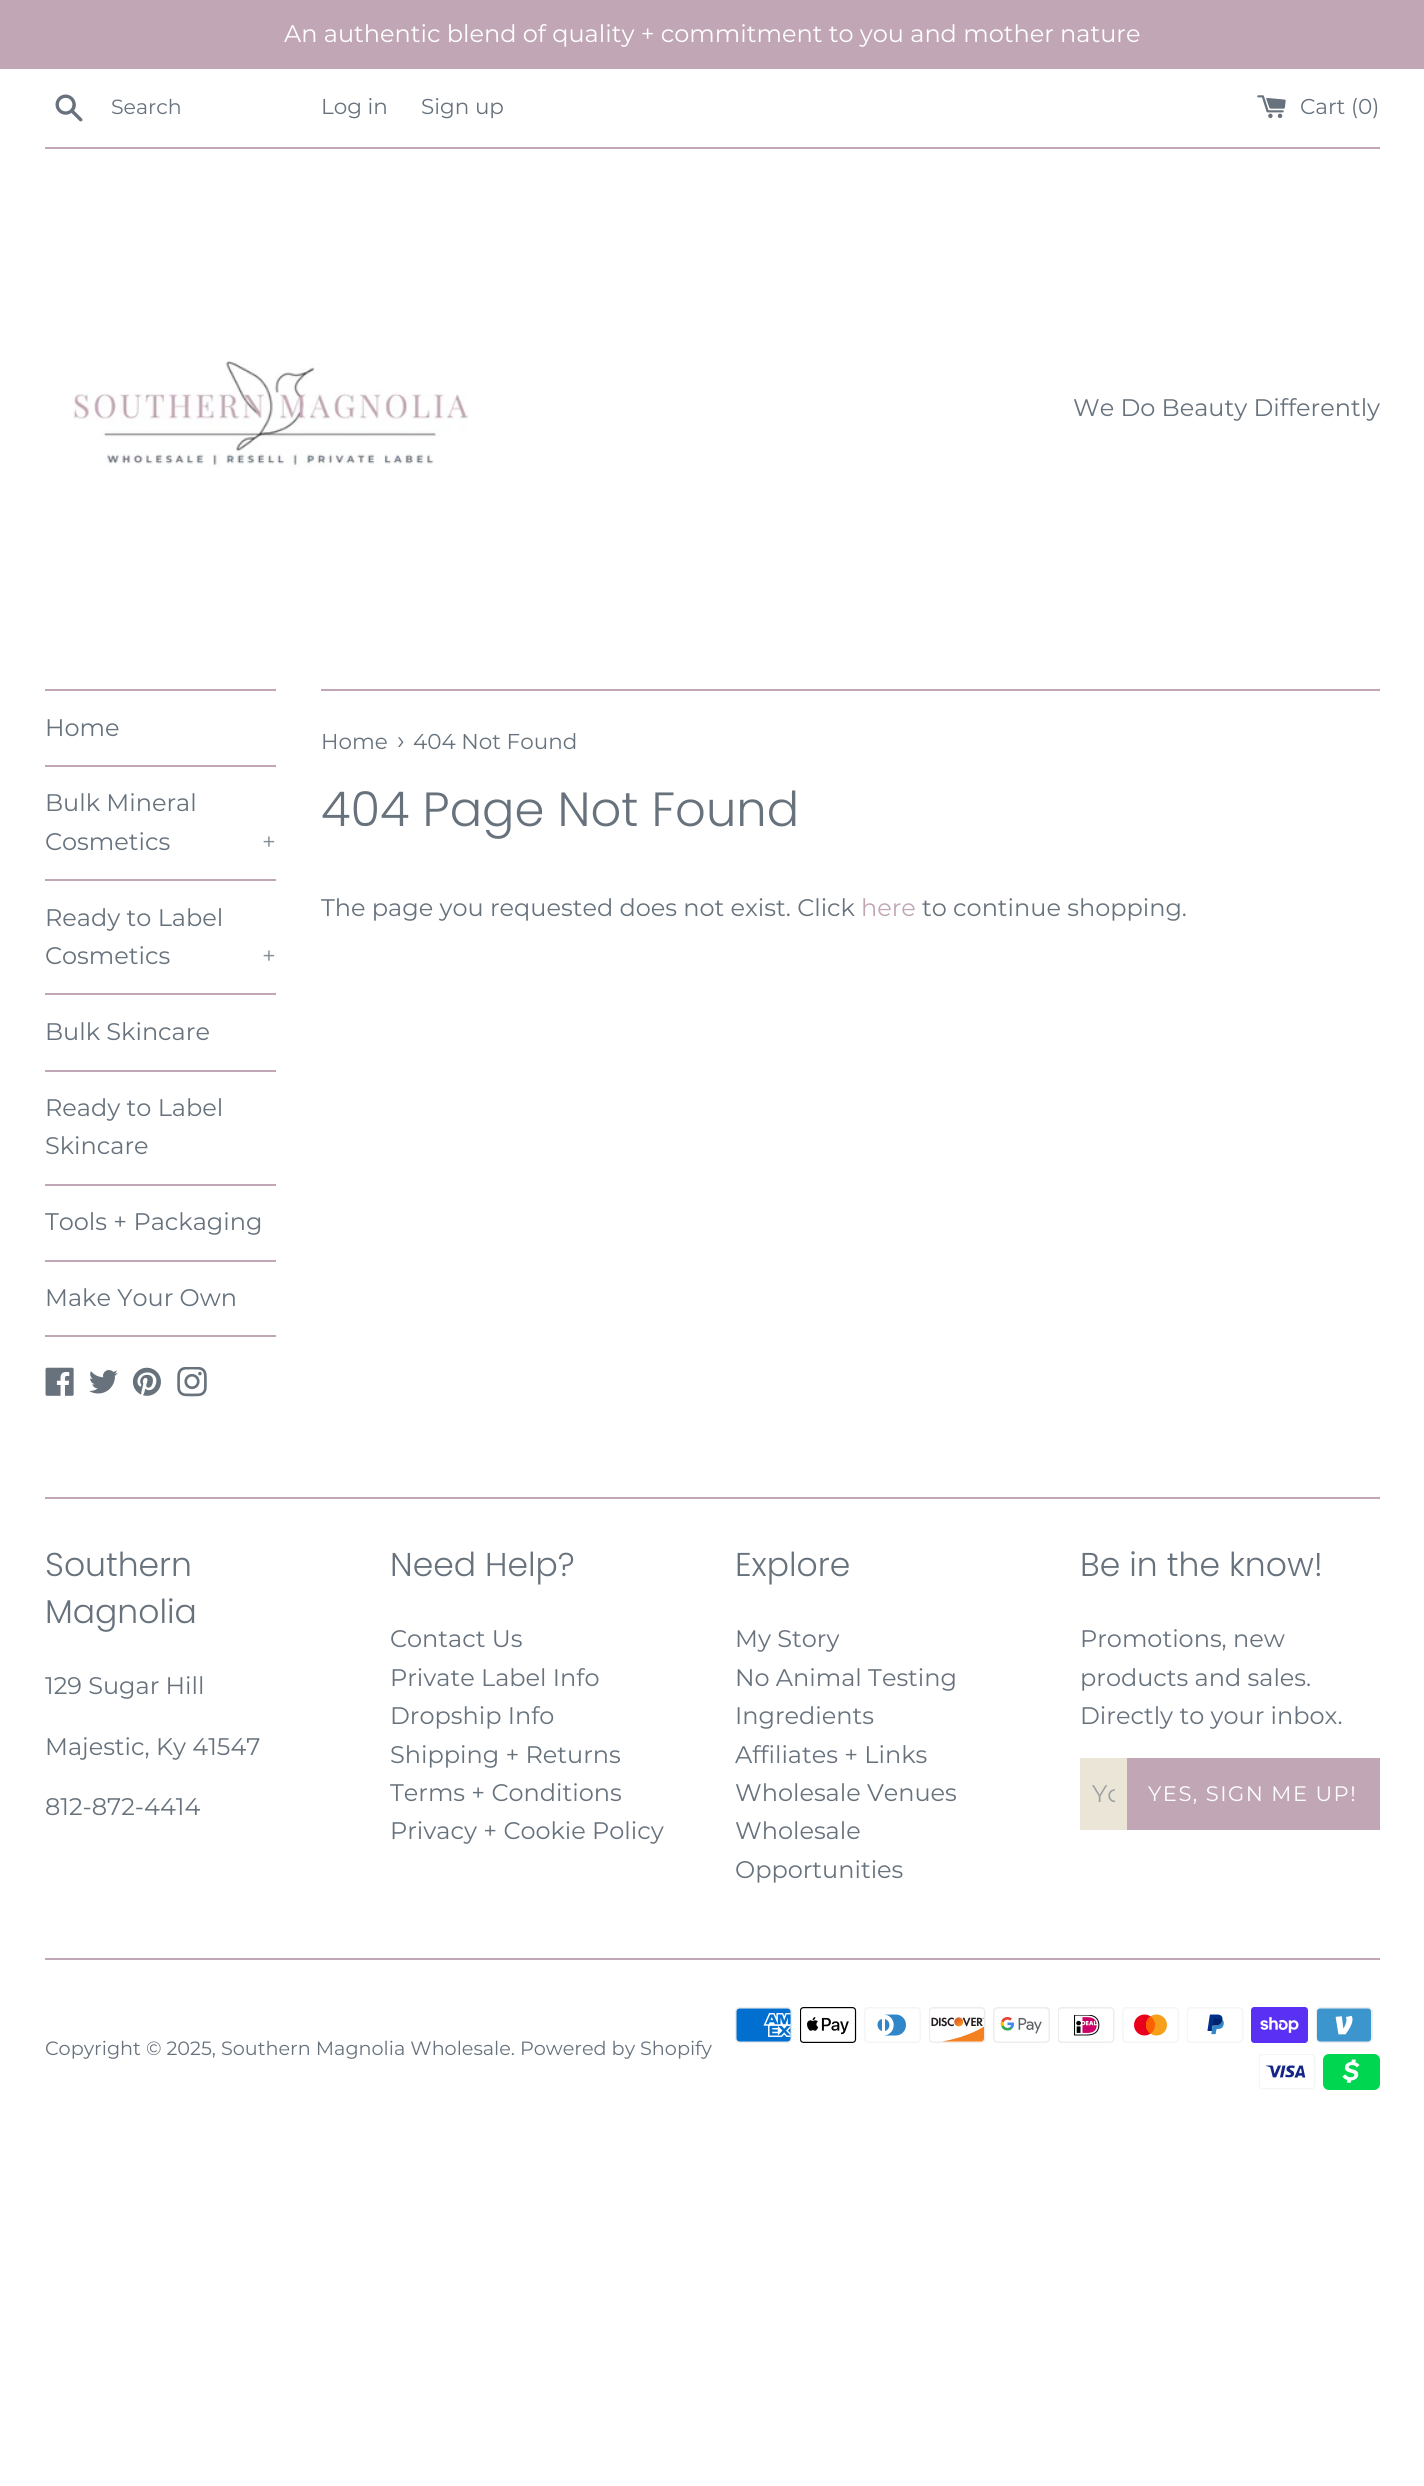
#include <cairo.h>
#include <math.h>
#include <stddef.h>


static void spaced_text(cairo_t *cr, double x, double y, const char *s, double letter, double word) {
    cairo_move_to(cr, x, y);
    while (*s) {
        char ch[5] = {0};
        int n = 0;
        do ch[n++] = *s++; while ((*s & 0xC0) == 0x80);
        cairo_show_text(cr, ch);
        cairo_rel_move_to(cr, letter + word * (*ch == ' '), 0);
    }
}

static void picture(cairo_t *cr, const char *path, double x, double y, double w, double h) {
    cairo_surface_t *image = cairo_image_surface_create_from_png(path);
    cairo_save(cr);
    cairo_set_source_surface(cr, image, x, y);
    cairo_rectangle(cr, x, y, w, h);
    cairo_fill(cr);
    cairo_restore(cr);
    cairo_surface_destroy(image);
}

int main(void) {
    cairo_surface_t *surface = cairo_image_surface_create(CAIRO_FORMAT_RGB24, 1424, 2486);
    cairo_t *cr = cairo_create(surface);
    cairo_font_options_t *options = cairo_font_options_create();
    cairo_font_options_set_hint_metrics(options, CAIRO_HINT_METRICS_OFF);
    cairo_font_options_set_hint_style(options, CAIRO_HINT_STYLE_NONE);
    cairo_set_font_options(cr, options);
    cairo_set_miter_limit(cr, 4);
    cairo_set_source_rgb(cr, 1, 1, 1);
    cairo_paint(cr);
    cairo_set_source_rgb(cr, 0.757, 0.655, 0.71);
    cairo_rectangle(cr, 0, 0, 1424, 69);
    cairo_fill(cr);
    cairo_select_font_face(cr, "Montserrat", CAIRO_FONT_SLANT_NORMAL, CAIRO_FONT_WEIGHT_NORMAL);
    cairo_set_font_size(cr, 24);
    cairo_set_source_rgb(cr, 1, 1, 1);
    cairo_move_to(cr, 284, 42);
    cairo_show_text(cr, "An authentic blend of quality + commitment to you and mother nature");
    picture(cr, "img1.png", 55, 94, 28, 28);
    cairo_set_font_size(cr, 20.5);
    cairo_set_source_rgb(cr, 0.404, 0.447, 0.49);
    cairo_move_to(cr, 111, 114);
    cairo_show_text(cr, "Search");
    cairo_set_font_size(cr, 21.5);
    cairo_move_to(cr, 321, 114);
    cairo_show_text(cr, "Log in");
    cairo_move_to(cr, 421, 114);
    cairo_show_text(cr, "Sign up");
    picture(cr, "img2.png", 1257, 95, 29, 24);
    cairo_move_to(cr, 1300, 114);
    cairo_show_text(cr, "Cart (0)");
    cairo_set_source_rgb(cr, 0.757, 0.655, 0.71);
    cairo_rectangle(cr, 45, 147, 1335, 2);
    cairo_fill(cr);
    picture(cr, "img3.png", 73, 361, 396, 107);
    cairo_set_font_size(cr, 24);
    cairo_set_source_rgb(cr, 0.404, 0.447, 0.49);
    cairo_move_to(cr, 1073, 416);
    cairo_show_text(cr, "We Do Beauty Differently");
    cairo_set_source_rgb(cr, 0.757, 0.655, 0.71);
    cairo_rectangle(cr, 45, 689, 231, 2);
    cairo_fill(cr);
    cairo_rectangle(cr, 45, 765, 231, 2);
    cairo_fill(cr);
    cairo_set_source_rgb(cr, 0.404, 0.447, 0.49);
    cairo_move_to(cr, 45, 736);
    cairo_show_text(cr, "Home");
    cairo_set_source_rgb(cr, 0.757, 0.655, 0.71);
    cairo_rectangle(cr, 45, 879, 231, 2);
    cairo_fill(cr);
    cairo_set_source_rgb(cr, 0.404, 0.447, 0.49);
    cairo_move_to(cr, 45, 811);
    cairo_show_text(cr, "Bulk Mineral");
    cairo_move_to(cr, 45, 850);
    cairo_show_text(cr, "Cosmetics");
    cairo_set_source_rgb(cr, 0.522, 0.557, 0.592);
    cairo_move_to(cr, 262, 850);
    cairo_show_text(cr, "+");
    cairo_set_source_rgb(cr, 0.757, 0.655, 0.71);
    cairo_rectangle(cr, 45, 993, 231, 2);
    cairo_fill(cr);
    cairo_set_source_rgb(cr, 0.404, 0.447, 0.49);
    cairo_move_to(cr, 45, 926);
    cairo_show_text(cr, "Ready to Label");
    cairo_move_to(cr, 45, 964);
    cairo_show_text(cr, "Cosmetics");
    cairo_set_source_rgb(cr, 0.522, 0.557, 0.592);
    cairo_move_to(cr, 262, 964);
    cairo_show_text(cr, "+");
    cairo_set_source_rgb(cr, 0.757, 0.655, 0.71);
    cairo_rectangle(cr, 45, 1070, 231, 2);
    cairo_fill(cr);
    cairo_set_source_rgb(cr, 0.404, 0.447, 0.49);
    cairo_move_to(cr, 45, 1040);
    cairo_show_text(cr, "Bulk Skincare");
    cairo_set_source_rgb(cr, 0.757, 0.655, 0.71);
    cairo_rectangle(cr, 45, 1184, 231, 2);
    cairo_fill(cr);
    cairo_set_source_rgb(cr, 0.404, 0.447, 0.49);
    cairo_move_to(cr, 45, 1116);
    cairo_show_text(cr, "Ready to Label");
    cairo_move_to(cr, 45, 1154);
    cairo_show_text(cr, "Skincare");
    cairo_set_source_rgb(cr, 0.757, 0.655, 0.71);
    cairo_rectangle(cr, 45, 1260, 231, 2);
    cairo_fill(cr);
    cairo_set_source_rgb(cr, 0.404, 0.447, 0.49);
    cairo_move_to(cr, 45, 1230);
    cairo_show_text(cr, "Tools + Packaging");
    cairo_set_source_rgb(cr, 0.757, 0.655, 0.71);
    cairo_rectangle(cr, 45, 1335, 231, 2);
    cairo_fill(cr);
    cairo_set_source_rgb(cr, 0.404, 0.447, 0.49);
    cairo_move_to(cr, 45, 1306);
    cairo_show_text(cr, "Make Your Own");
    picture(cr, "img4.png", 45, 1367, 29, 29);
    picture(cr, "img5.png", 89, 1370, 29, 24);
    picture(cr, "img6.png", 132, 1367, 29, 29);
    picture(cr, "img7.png", 177, 1367, 30, 30);
    cairo_set_source_rgb(cr, 0.757, 0.655, 0.71);
    cairo_rectangle(cr, 321, 689, 1059, 2);
    cairo_fill(cr);
    cairo_set_font_size(cr, 21.5);
    cairo_set_source_rgb(cr, 0.404, 0.447, 0.49);
    cairo_move_to(cr, 321, 749);
    cairo_show_text(cr, "Home");
    cairo_set_font_size(cr, 26);
    cairo_move_to(cr, 397, 749);
    cairo_show_text(cr, "›");
    cairo_set_font_size(cr, 21.5);
    cairo_move_to(cr, 413, 749);
    cairo_show_text(cr, "404 Not Found");
    cairo_select_font_face(cr, "Poppins Light", CAIRO_FONT_SLANT_NORMAL, CAIRO_FONT_WEIGHT_NORMAL);
    cairo_set_font_size(cr, 48);
    cairo_move_to(cr, 321, 826);
    cairo_show_text(cr, "404 Page Not Found");
    cairo_select_font_face(cr, "Montserrat", CAIRO_FONT_SLANT_NORMAL, CAIRO_FONT_WEIGHT_NORMAL);
    cairo_set_font_size(cr, 24);
    cairo_move_to(cr, 321, 916);
    cairo_show_text(cr, "The page you requested does not exist. Click");
    cairo_set_source_rgb(cr, 0.757, 0.655, 0.71);
    cairo_move_to(cr, 861, 916);
    cairo_show_text(cr, "here");
    cairo_set_source_rgb(cr, 0.404, 0.447, 0.49);
    cairo_move_to(cr, 922, 916);
    cairo_show_text(cr, "to continue shopping.");
    cairo_set_source_rgb(cr, 0.757, 0.655, 0.71);
    cairo_rectangle(cr, 45, 1497, 1335, 2);
    cairo_fill(cr);
    cairo_select_font_face(cr, "Poppins Light", CAIRO_FONT_SLANT_NORMAL, CAIRO_FONT_WEIGHT_NORMAL);
    cairo_set_font_size(cr, 33);
    cairo_set_source_rgb(cr, 0.404, 0.447, 0.49);
    cairo_move_to(cr, 45, 1576);
    cairo_show_text(cr, "Southern");
    cairo_move_to(cr, 45, 1623);
    cairo_show_text(cr, "Magnolia");
    cairo_select_font_face(cr, "Montserrat", CAIRO_FONT_SLANT_NORMAL, CAIRO_FONT_WEIGHT_NORMAL);
    cairo_set_font_size(cr, 24);
    cairo_move_to(cr, 45, 1694);
    cairo_show_text(cr, "129 Sugar Hill");
    cairo_move_to(cr, 45, 1755);
    cairo_show_text(cr, "Majestic, Ky 41547");
    cairo_move_to(cr, 45, 1815);
    cairo_show_text(cr, "812-872-4414");
    cairo_select_font_face(cr, "Poppins Light", CAIRO_FONT_SLANT_NORMAL, CAIRO_FONT_WEIGHT_NORMAL);
    cairo_set_font_size(cr, 33);
    cairo_move_to(cr, 390, 1576);
    cairo_show_text(cr, "Need Help?");
    cairo_select_font_face(cr, "Montserrat", CAIRO_FONT_SLANT_NORMAL, CAIRO_FONT_WEIGHT_NORMAL);
    cairo_set_font_size(cr, 24);
    cairo_move_to(cr, 390, 1647);
    cairo_show_text(cr, "Contact Us");
    cairo_move_to(cr, 390, 1686);
    cairo_show_text(cr, "Private Label Info");
    cairo_move_to(cr, 390, 1724);
    cairo_show_text(cr, "Dropship Info");
    cairo_move_to(cr, 390, 1763);
    cairo_show_text(cr, "Shipping + Returns");
    cairo_move_to(cr, 390, 1801);
    cairo_show_text(cr, "Terms + Conditions");
    cairo_move_to(cr, 390, 1839);
    cairo_show_text(cr, "Privacy + Cookie Policy");
    cairo_select_font_face(cr, "Poppins Light", CAIRO_FONT_SLANT_NORMAL, CAIRO_FONT_WEIGHT_NORMAL);
    cairo_set_font_size(cr, 33);
    cairo_move_to(cr, 735, 1576);
    cairo_show_text(cr, "Explore");
    cairo_select_font_face(cr, "Montserrat", CAIRO_FONT_SLANT_NORMAL, CAIRO_FONT_WEIGHT_NORMAL);
    cairo_set_font_size(cr, 24);
    cairo_move_to(cr, 735, 1647);
    cairo_show_text(cr, "My Story");
    cairo_move_to(cr, 735, 1686);
    cairo_show_text(cr, "No Animal Testing");
    cairo_move_to(cr, 735, 1724);
    cairo_show_text(cr, "Ingredients");
    cairo_move_to(cr, 735, 1763);
    cairo_show_text(cr, "Affiliates + Links");
    cairo_move_to(cr, 735, 1801);
    cairo_show_text(cr, "Wholesale Venues");
    cairo_move_to(cr, 735, 1839);
    cairo_show_text(cr, "Wholesale");
    cairo_move_to(cr, 735, 1878);
    cairo_show_text(cr, "Opportunities");
    cairo_select_font_face(cr, "Poppins Light", CAIRO_FONT_SLANT_NORMAL, CAIRO_FONT_WEIGHT_NORMAL);
    cairo_set_font_size(cr, 33);
    cairo_move_to(cr, 1080, 1576);
    cairo_show_text(cr, "Be in the know!");
    cairo_select_font_face(cr, "Montserrat", CAIRO_FONT_SLANT_NORMAL, CAIRO_FONT_WEIGHT_NORMAL);
    cairo_set_font_size(cr, 24);
    cairo_move_to(cr, 1080, 1647);
    cairo_show_text(cr, "Promotions, new");
    cairo_move_to(cr, 1080, 1686);
    cairo_show_text(cr, "products and sales.");
    cairo_move_to(cr, 1080, 1724);
    cairo_show_text(cr, "Directly to your inbox.");
    cairo_set_source_rgb(cr, 0.918, 0.898, 0.847);
    cairo_rectangle(cr, 1080, 1758, 47, 72);
    cairo_fill(cr);
    cairo_save(cr);
    cairo_rectangle(cr, 1092, 1781, 23, 28);
    cairo_clip(cr);
    cairo_set_source_rgb(cr, 0.608, 0.627, 0.631);
    cairo_move_to(cr, 1092, 1802);
    cairo_show_text(cr, "Yo");
    cairo_restore(cr);
    cairo_set_source_rgb(cr, 0.757, 0.655, 0.71);
    cairo_rectangle(cr, 1127, 1758, 253, 72);
    cairo_fill(cr);
    cairo_set_font_size(cr, 21);
    cairo_set_source_rgb(cr, 1, 1, 1);
    spaced_text(cr, 1148, 1801, "YES, SIGN ME UP!", 1.5, 0);
    cairo_set_source_rgb(cr, 0.757, 0.655, 0.71);
    cairo_rectangle(cr, 45, 1958, 1335, 2);
    cairo_fill(cr);
    cairo_set_font_size(cr, 19.2);
    cairo_set_source_rgb(cr, 0.404, 0.447, 0.49);
    cairo_move_to(cr, 45, 2055);
    cairo_show_text(cr, "Copyright © 2025, Southern Magnolia Wholesale. Powered by Shopify");
    picture(cr, "img8.png", 735, 2007, 57, 36);
    picture(cr, "img9.png", 800, 2007, 57, 36);
    picture(cr, "img10.png", 864, 2007, 57, 36);
    picture(cr, "img11.png", 929, 2007, 57, 36);
    picture(cr, "img12.png", 993, 2007, 57, 36);
    picture(cr, "img13.png", 1058, 2007, 57, 36);
    picture(cr, "img14.png", 1122, 2007, 57, 36);
    picture(cr, "img15.png", 1187, 2007, 57, 36);
    picture(cr, "img16.png", 1251, 2007, 57, 36);
    picture(cr, "img17.png", 1316, 2007, 57, 36);
    picture(cr, "img18.png", 1259, 2054, 57, 36);
    picture(cr, "img19.png", 1323, 2054, 57, 36);
    cairo_surface_write_to_png(surface, "page.png");
    cairo_font_options_destroy(options);
    cairo_destroy(cr);
    cairo_surface_destroy(surface);
    return 0;
}
